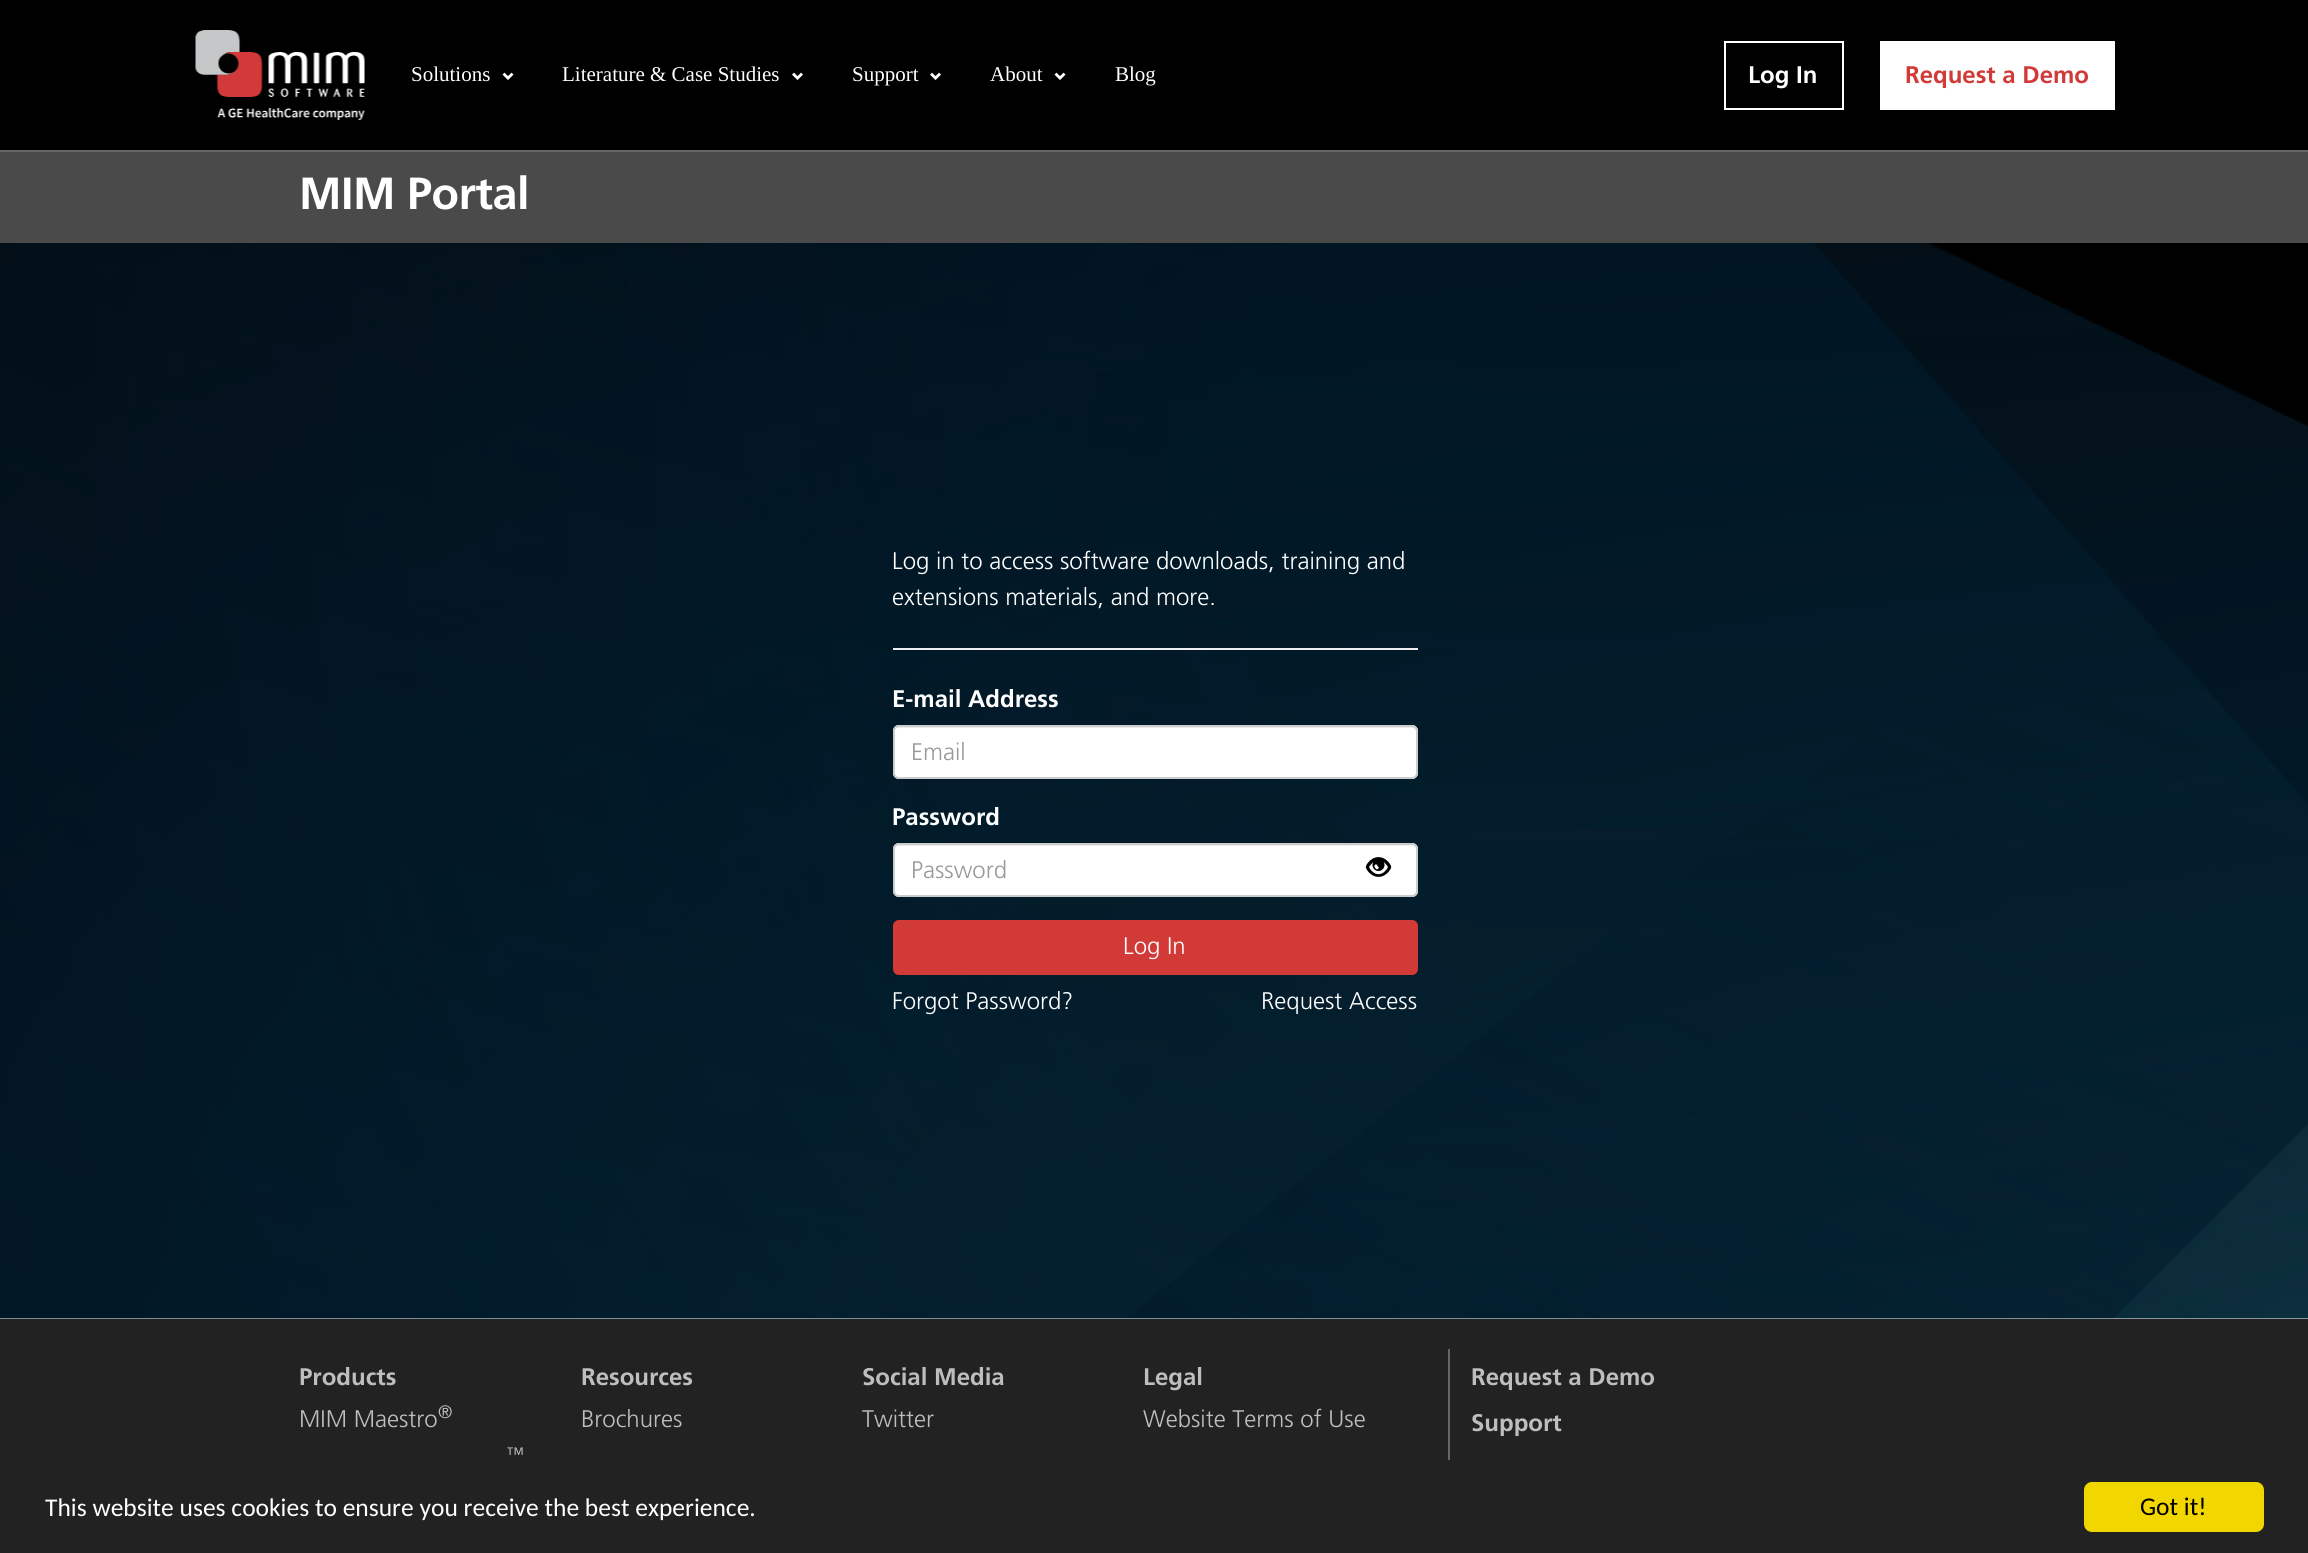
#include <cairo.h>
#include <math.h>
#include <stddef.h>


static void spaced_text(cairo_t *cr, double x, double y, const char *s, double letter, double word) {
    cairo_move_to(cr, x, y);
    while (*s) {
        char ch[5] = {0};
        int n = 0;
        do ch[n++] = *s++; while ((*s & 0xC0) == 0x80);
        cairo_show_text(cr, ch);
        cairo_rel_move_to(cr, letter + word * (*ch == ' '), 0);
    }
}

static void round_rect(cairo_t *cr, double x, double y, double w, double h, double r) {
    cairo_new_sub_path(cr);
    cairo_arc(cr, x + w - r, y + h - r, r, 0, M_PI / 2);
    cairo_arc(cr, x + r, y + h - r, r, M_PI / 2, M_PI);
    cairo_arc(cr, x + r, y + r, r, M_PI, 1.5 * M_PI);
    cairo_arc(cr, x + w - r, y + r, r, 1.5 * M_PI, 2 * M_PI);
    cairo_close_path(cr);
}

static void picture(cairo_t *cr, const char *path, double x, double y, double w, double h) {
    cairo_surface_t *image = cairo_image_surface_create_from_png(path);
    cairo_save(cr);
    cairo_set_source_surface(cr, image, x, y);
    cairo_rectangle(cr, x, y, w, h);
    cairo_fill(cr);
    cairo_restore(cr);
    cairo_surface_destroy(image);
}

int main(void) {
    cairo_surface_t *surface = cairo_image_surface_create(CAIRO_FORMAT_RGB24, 2308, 1553);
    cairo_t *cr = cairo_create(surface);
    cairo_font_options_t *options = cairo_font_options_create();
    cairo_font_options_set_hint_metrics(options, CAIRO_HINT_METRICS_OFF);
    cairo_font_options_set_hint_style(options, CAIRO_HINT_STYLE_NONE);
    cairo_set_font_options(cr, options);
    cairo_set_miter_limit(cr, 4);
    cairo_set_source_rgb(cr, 0.133, 0.133, 0.133);
    cairo_paint(cr);
    cairo_set_source_rgb(cr, 0, 0, 0);
    cairo_rectangle(cr, 0, 0, 2308, 150);
    cairo_fill(cr);
    cairo_set_source_rgb(cr, 0.4, 0.4, 0.4);
    cairo_rectangle(cr, 0, 150, 2308, 2);
    cairo_fill(cr);
    picture(cr, "img1.png", 195, 30, 170, 90);
    cairo_select_font_face(cr, "Liberation Serif", CAIRO_FONT_SLANT_NORMAL, CAIRO_FONT_WEIGHT_NORMAL);
    cairo_set_font_size(cr, 21);
    cairo_set_source_rgb(cr, 1, 1, 1);
    cairo_move_to(cr, 411, 81);
    cairo_show_text(cr, "Solutions");
    picture(cr, "img2.png", 502, 72, 12, 8);
    cairo_move_to(cr, 562, 81);
    cairo_show_text(cr, "Literature & Case Studies");
    picture(cr, "img3.png", 792, 72, 11, 8);
    cairo_move_to(cr, 852, 81);
    cairo_show_text(cr, "Support");
    picture(cr, "img3.png", 930, 72, 11, 8);
    cairo_move_to(cr, 990, 81);
    cairo_show_text(cr, "About");
    picture(cr, "img2.png", 1054, 72, 12, 8);
    cairo_move_to(cr, 1115, 81);
    cairo_show_text(cr, "Blog");
    cairo_rectangle(cr, 1725, 42, 118, 67);
    cairo_stroke(cr);
    cairo_select_font_face(cr, "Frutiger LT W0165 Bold", CAIRO_FONT_SLANT_NORMAL, CAIRO_FONT_WEIGHT_BOLD);
    cairo_set_font_size(cr, 24);
    cairo_move_to(cr, 1748, 83);
    cairo_show_text(cr, "Log In");
    cairo_rectangle(cr, 1880, 41, 235, 69);
    cairo_fill(cr);
    cairo_set_source_rgb(cr, 0.824, 0.227, 0.22);
    cairo_move_to(cr, 1905, 83);
    cairo_show_text(cr, "Request a Demo");
    cairo_set_source_rgb(cr, 1, 1, 1);
    cairo_rectangle(cr, 0, 1318, 2308, 1);
    cairo_fill(cr);
    cairo_set_source_rgb(cr, 0.29, 0.29, 0.29);
    cairo_rectangle(cr, 0, 152, 2308, 91);
    cairo_fill(cr);
    cairo_set_font_size(cr, 45);
    cairo_set_source_rgb(cr, 1, 1, 1);
    spaced_text(cr, 299, 209, "MIM Portal", -0.5, 0);
    picture(cr, "img4.png", 0, 243, 2308, 1076);
    cairo_select_font_face(cr, "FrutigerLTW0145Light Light", CAIRO_FONT_SLANT_NORMAL, CAIRO_FONT_WEIGHT_NORMAL);
    cairo_set_font_size(cr, 24);
    cairo_move_to(cr, 892, 569);
    cairo_show_text(cr, "Log in to access software downloads, training and");
    cairo_move_to(cr, 892, 605);
    cairo_show_text(cr, "extensions materials, and more.");
    cairo_set_source_rgb(cr, 0.933, 0.933, 0.933);
    cairo_rectangle(cr, 893, 648, 525, 2);
    cairo_fill(cr);
    cairo_select_font_face(cr, "Frutiger LT W0165 Bold", CAIRO_FONT_SLANT_NORMAL, CAIRO_FONT_WEIGHT_BOLD);
    cairo_set_source_rgb(cr, 1, 1, 1);
    cairo_move_to(cr, 892, 707);
    cairo_show_text(cr, "E-mail Address");
    round_rect(cr, 893, 725, 525, 54, 6);
    cairo_fill(cr);
    cairo_set_source_rgb(cr, 0.925, 0.925, 0.925);
    cairo_new_path(cr);
    cairo_move_to(cr, 898, 728);
    cairo_line_to(cr, 1412, 728);
    cairo_curve_to(cr, 1414, 728, 1416, 730, 1416, 732);
    cairo_line_to(cr, 1416, 731);
    cairo_curve_to(cr, 1416, 728, 1414, 726, 1411, 726);
    cairo_line_to(cr, 899, 726);
    cairo_curve_to(cr, 896, 726, 894, 728, 894, 731);
    cairo_line_to(cr, 894, 732);
    cairo_curve_to(cr, 894, 730, 896, 728, 898, 728);
    cairo_close_path(cr);
    cairo_fill(cr);
    round_rect(cr, 894, 726, 523, 52, 5);
    cairo_set_source_rgb(cr, 0.8, 0.8, 0.8);
    cairo_stroke(cr);
    cairo_select_font_face(cr, "FrutigerLTW0145Light Light", CAIRO_FONT_SLANT_NORMAL, CAIRO_FONT_WEIGHT_NORMAL);
    cairo_set_source_rgb(cr, 0.6, 0.6, 0.6);
    cairo_move_to(cr, 911, 760);
    cairo_show_text(cr, "Email");
    cairo_select_font_face(cr, "Frutiger LT W0165 Bold", CAIRO_FONT_SLANT_NORMAL, CAIRO_FONT_WEIGHT_BOLD);
    cairo_set_source_rgb(cr, 1, 1, 1);
    cairo_move_to(cr, 892, 825);
    cairo_show_text(cr, "Password");
    round_rect(cr, 893, 843, 525, 54, 6);
    cairo_fill(cr);
    cairo_set_source_rgb(cr, 0.925, 0.925, 0.925);
    cairo_new_path(cr);
    cairo_move_to(cr, 898, 846);
    cairo_line_to(cr, 1412, 846);
    cairo_curve_to(cr, 1414, 846, 1416, 848, 1416, 850);
    cairo_curve_to(cr, 1416, 847, 1414, 845, 1411, 845);
    cairo_line_to(cr, 899, 845);
    cairo_curve_to(cr, 896, 845, 894, 847, 894, 850);
    cairo_curve_to(cr, 894, 848, 896, 846, 898, 846);
    cairo_close_path(cr);
    cairo_fill(cr);
    round_rect(cr, 894, 844, 523, 52, 5);
    cairo_set_source_rgb(cr, 0.8, 0.8, 0.8);
    cairo_stroke(cr);
    cairo_select_font_face(cr, "FrutigerLTW0145Light Light", CAIRO_FONT_SLANT_NORMAL, CAIRO_FONT_WEIGHT_NORMAL);
    cairo_set_source_rgb(cr, 0.6, 0.6, 0.6);
    cairo_move_to(cr, 911, 878);
    cairo_show_text(cr, "Password");
    picture(cr, "img5.png", 1365, 857, 27, 20);
    cairo_set_source_rgb(cr, 0.824, 0.227, 0.22);
    round_rect(cr, 893, 920, 525, 55, 6);
    cairo_fill(cr);
    cairo_set_source_rgb(cr, 1, 1, 1);
    cairo_move_to(cr, 1123, 954);
    cairo_show_text(cr, "Log In");
    cairo_move_to(cr, 892, 1009);
    cairo_show_text(cr, "Forgot Password?");
    cairo_move_to(cr, 1261, 1009);
    cairo_show_text(cr, "Request Access");
    cairo_select_font_face(cr, "Frutiger LT W0165 Bold", CAIRO_FONT_SLANT_NORMAL, CAIRO_FONT_WEIGHT_BOLD);
    cairo_set_source_rgb(cr, 0.745, 0.745, 0.745);
    cairo_move_to(cr, 299, 1385);
    cairo_show_text(cr, "Products");
    cairo_select_font_face(cr, "FrutigerLTW0145Light Light", CAIRO_FONT_SLANT_NORMAL, CAIRO_FONT_WEIGHT_NORMAL);
    cairo_move_to(cr, 299, 1427);
    cairo_show_text(cr, "MIM Maestro");
    cairo_set_font_size(cr, 18);
    cairo_move_to(cr, 438, 1418);
    cairo_show_text(cr, "®");
    cairo_move_to(cr, 506, 1460);
    cairo_show_text(cr, "™");
    cairo_select_font_face(cr, "Frutiger LT W0165 Bold", CAIRO_FONT_SLANT_NORMAL, CAIRO_FONT_WEIGHT_BOLD);
    cairo_set_font_size(cr, 24);
    cairo_move_to(cr, 581, 1385);
    cairo_show_text(cr, "Resources");
    cairo_select_font_face(cr, "FrutigerLTW0145Light Light", CAIRO_FONT_SLANT_NORMAL, CAIRO_FONT_WEIGHT_NORMAL);
    cairo_move_to(cr, 581, 1427);
    cairo_show_text(cr, "Brochures");
    cairo_select_font_face(cr, "Frutiger LT W0165 Bold", CAIRO_FONT_SLANT_NORMAL, CAIRO_FONT_WEIGHT_BOLD);
    cairo_move_to(cr, 862, 1385);
    cairo_show_text(cr, "Social Media");
    cairo_select_font_face(cr, "FrutigerLTW0145Light Light", CAIRO_FONT_SLANT_NORMAL, CAIRO_FONT_WEIGHT_NORMAL);
    cairo_move_to(cr, 862, 1427);
    cairo_show_text(cr, "Twitter");
    cairo_select_font_face(cr, "Frutiger LT W0165 Bold", CAIRO_FONT_SLANT_NORMAL, CAIRO_FONT_WEIGHT_BOLD);
    cairo_move_to(cr, 1143, 1385);
    cairo_show_text(cr, "Legal");
    cairo_select_font_face(cr, "FrutigerLTW0145Light Light", CAIRO_FONT_SLANT_NORMAL, CAIRO_FONT_WEIGHT_NORMAL);
    cairo_move_to(cr, 1143, 1427);
    cairo_show_text(cr, "Website Terms of Use");
    cairo_set_source_rgb(cr, 0.4, 0.4, 0.4);
    cairo_rectangle(cr, 1448, 1349, 2, 111);
    cairo_fill(cr);
    cairo_select_font_face(cr, "Frutiger LT W0165 Bold", CAIRO_FONT_SLANT_NORMAL, CAIRO_FONT_WEIGHT_BOLD);
    cairo_set_source_rgb(cr, 0.745, 0.745, 0.745);
    cairo_move_to(cr, 1471, 1385);
    cairo_show_text(cr, "Request a Demo");
    cairo_move_to(cr, 1471, 1431);
    cairo_show_text(cr, "Support");
    cairo_select_font_face(cr, "Carlito", CAIRO_FONT_SLANT_NORMAL, CAIRO_FONT_WEIGHT_NORMAL);
    cairo_set_font_size(cr, 25.5);
    cairo_set_source_rgb(cr, 1, 1, 1);
    cairo_move_to(cr, 45, 1516);
    cairo_show_text(cr, "This website uses cookies to ensure you receive the best experience.");
    cairo_set_source_rgb(cr, 0.945, 0.839, 0);
    round_rect(cr, 2084, 1482, 180, 50, 8);
    cairo_fill(cr);
    cairo_set_source_rgb(cr, 0, 0, 0);
    cairo_move_to(cr, 2140, 1515);
    cairo_show_text(cr, "Got it!");
    cairo_surface_write_to_png(surface, "page.png");
    cairo_font_options_destroy(options);
    cairo_destroy(cr);
    cairo_surface_destroy(surface);
    return 0;
}
